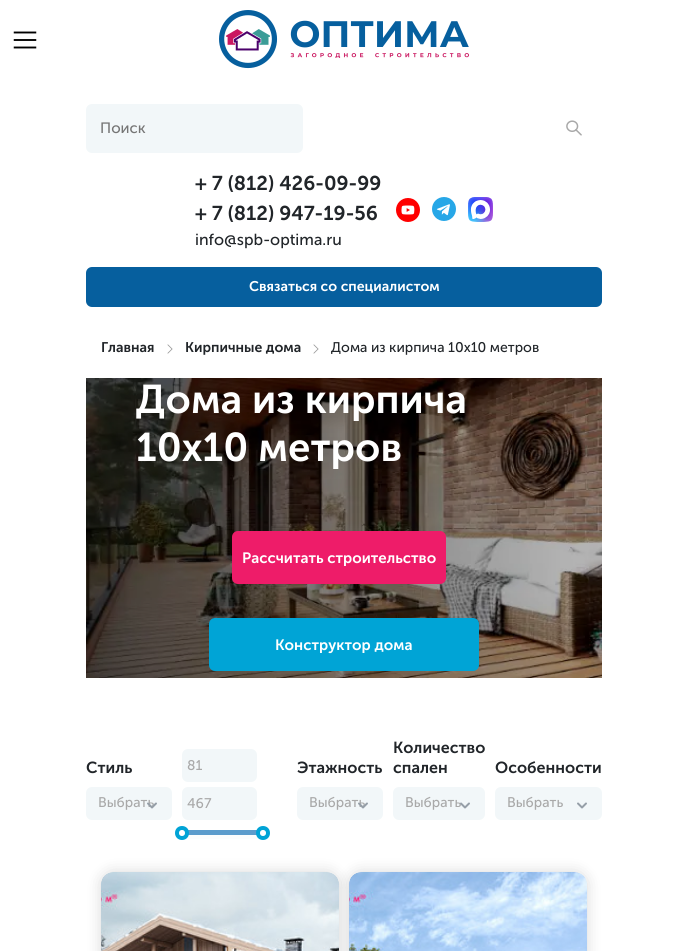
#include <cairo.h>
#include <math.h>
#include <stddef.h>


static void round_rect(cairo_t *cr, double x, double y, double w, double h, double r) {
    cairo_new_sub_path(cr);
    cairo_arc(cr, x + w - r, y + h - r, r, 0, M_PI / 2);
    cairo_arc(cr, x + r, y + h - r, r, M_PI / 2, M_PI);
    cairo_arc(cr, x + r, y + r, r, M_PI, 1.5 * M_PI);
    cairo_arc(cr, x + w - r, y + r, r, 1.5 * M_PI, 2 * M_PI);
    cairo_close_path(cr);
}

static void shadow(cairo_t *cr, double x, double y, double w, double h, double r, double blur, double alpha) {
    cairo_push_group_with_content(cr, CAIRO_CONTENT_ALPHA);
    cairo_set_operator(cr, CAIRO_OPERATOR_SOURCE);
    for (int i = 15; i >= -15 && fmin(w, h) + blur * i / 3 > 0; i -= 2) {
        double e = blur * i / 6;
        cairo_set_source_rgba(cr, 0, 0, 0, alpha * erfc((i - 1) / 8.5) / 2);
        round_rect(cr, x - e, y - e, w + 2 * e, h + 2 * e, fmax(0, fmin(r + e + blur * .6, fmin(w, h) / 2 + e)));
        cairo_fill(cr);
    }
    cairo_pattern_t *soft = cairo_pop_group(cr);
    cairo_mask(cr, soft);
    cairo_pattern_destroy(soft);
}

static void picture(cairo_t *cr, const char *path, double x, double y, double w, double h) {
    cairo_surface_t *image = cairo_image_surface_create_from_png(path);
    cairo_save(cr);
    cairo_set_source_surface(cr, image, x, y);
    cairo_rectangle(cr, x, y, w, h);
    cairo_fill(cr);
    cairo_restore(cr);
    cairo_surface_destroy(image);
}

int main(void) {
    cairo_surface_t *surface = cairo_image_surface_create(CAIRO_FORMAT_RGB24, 688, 951);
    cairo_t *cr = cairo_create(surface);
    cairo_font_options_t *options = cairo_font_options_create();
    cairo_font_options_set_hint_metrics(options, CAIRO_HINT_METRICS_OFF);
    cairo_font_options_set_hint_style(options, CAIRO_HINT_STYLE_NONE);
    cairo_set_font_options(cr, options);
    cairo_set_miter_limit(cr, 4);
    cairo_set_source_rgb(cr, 1, 1, 1);
    cairo_paint(cr);
    picture(cr, "img1.png", 13, 31, 24, 18);
    picture(cr, "img2.png", 219, 10, 250, 59);
    cairo_set_source_rgb(cr, 0.949, 0.965, 0.973);
    round_rect(cr, 86, 104, 217, 49, 6);
    cairo_fill(cr);
    cairo_select_font_face(cr, "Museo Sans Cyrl", CAIRO_FONT_SLANT_NORMAL, CAIRO_FONT_WEIGHT_NORMAL);
    cairo_set_font_size(cr, 15);
    cairo_set_source_rgb(cr, 0.459, 0.459, 0.459);
    cairo_move_to(cr, 100, 133);
    cairo_show_text(cr, "Поиск");
    picture(cr, "img3.png", 566, 120, 16, 16);
    cairo_select_font_face(cr, "Museo Sans Cyrl SemiBold", CAIRO_FONT_SLANT_NORMAL, CAIRO_FONT_WEIGHT_NORMAL);
    cairo_set_font_size(cr, 20);
    cairo_set_source_rgb(cr, 0.129, 0.145, 0.161);
    cairo_move_to(cr, 195, 190);
    cairo_show_text(cr, "+ 7 (812) 426-09-99");
    cairo_move_to(cr, 195, 220);
    cairo_show_text(cr, "+ 7 (812) 947-19-56");
    cairo_select_font_face(cr, "Museo Sans Cyrl", CAIRO_FONT_SLANT_NORMAL, CAIRO_FONT_WEIGHT_NORMAL);
    cairo_set_font_size(cr, 16);
    cairo_move_to(cr, 195, 245);
    cairo_show_text(cr, "info@spb-optima.ru");
    picture(cr, "img4.png", 396, 198, 24, 24);
    picture(cr, "img5.png", 432, 197, 24, 24);
    picture(cr, "img6.png", 468, 197, 25, 25);
    cairo_set_source_rgb(cr, 0.024, 0.373, 0.62);
    round_rect(cr, 86, 267, 516, 40, 6);
    cairo_fill(cr);
    cairo_select_font_face(cr, "Museo Sans Cyrl SemiBold", CAIRO_FONT_SLANT_NORMAL, CAIRO_FONT_WEIGHT_NORMAL);
    cairo_set_font_size(cr, 14);
    cairo_set_source_rgb(cr, 1, 1, 1);
    cairo_move_to(cr, 249, 291);
    cairo_show_text(cr, "Связаться со специалистом");
    cairo_set_source_rgb(cr, 0.129, 0.145, 0.161);
    cairo_move_to(cr, 101, 352);
    cairo_show_text(cr, "Главная");
    picture(cr, "img7.png", 167, 344, 6, 10);
    cairo_move_to(cr, 185, 352);
    cairo_show_text(cr, "Кирпичные дома");
    picture(cr, "img7.png", 313, 344, 6, 10);
    cairo_select_font_face(cr, "Museo Sans Cyrl", CAIRO_FONT_SLANT_NORMAL, CAIRO_FONT_WEIGHT_NORMAL);
    cairo_move_to(cr, 331, 352);
    cairo_show_text(cr, "Дома из кирпича 10x10 метров");
    picture(cr, "img8.png", 86, 378, 516, 300);
    cairo_select_font_face(cr, "Museo Sans Cyrl SemiBold", CAIRO_FONT_SLANT_NORMAL, CAIRO_FONT_WEIGHT_NORMAL);
    cairo_set_font_size(cr, 40);
    cairo_set_source_rgb(cr, 1, 1, 1);
    cairo_move_to(cr, 136, 413);
    cairo_show_text(cr, "Дома из кирпича");
    cairo_move_to(cr, 136, 461);
    cairo_show_text(cr, "10x10 метров");
    cairo_set_source_rgb(cr, 0.933, 0.11, 0.412);
    round_rect(cr, 232, 531, 214, 53, 6);
    cairo_fill(cr);
    cairo_set_font_size(cr, 15);
    cairo_set_source_rgb(cr, 1, 1, 1);
    cairo_move_to(cr, 242, 563);
    cairo_show_text(cr, "Рассчитать строительство");
    cairo_set_source_rgb(cr, 0, 0.643, 0.839);
    round_rect(cr, 209, 618, 270, 53, 6);
    cairo_fill(cr);
    cairo_set_source_rgb(cr, 1, 1, 1);
    cairo_move_to(cr, 275, 650);
    cairo_show_text(cr, "Конструктор дома");
    cairo_set_font_size(cr, 16);
    cairo_set_source_rgb(cr, 0.129, 0.145, 0.161);
    cairo_move_to(cr, 86, 773);
    cairo_show_text(cr, "Стиль");
    cairo_set_source_rgb(cr, 0.949, 0.965, 0.973);
    round_rect(cr, 86, 787, 86, 33, 6);
    cairo_fill(cr);
    cairo_select_font_face(cr, "Museo Sans Cyrl", CAIRO_FONT_SLANT_NORMAL, CAIRO_FONT_WEIGHT_NORMAL);
    cairo_set_font_size(cr, 14);
    cairo_set_source_rgb(cr, 0.663, 0.663, 0.663);
    cairo_move_to(cr, 98, 807);
    cairo_show_text(cr, "Выбрать");
    cairo_new_path(cr);
    cairo_move_to(cr, 148, 803.5);
    cairo_line_to(cr, 152, 807.5);
    cairo_line_to(cr, 156, 803.5);
    cairo_set_source_rgb(cr, 0.588, 0.624, 0.659);
    cairo_set_line_cap(cr, CAIRO_LINE_CAP_ROUND);
    cairo_set_line_join(cr, CAIRO_LINE_JOIN_ROUND);
    cairo_stroke(cr);
    cairo_set_source_rgb(cr, 0.949, 0.965, 0.973);
    round_rect(cr, 182, 749, 75, 33, 6);
    cairo_fill(cr);
    cairo_set_source_rgb(cr, 0.663, 0.663, 0.663);
    cairo_move_to(cr, 187, 770);
    cairo_show_text(cr, "81");
    cairo_set_source_rgb(cr, 0.949, 0.965, 0.973);
    round_rect(cr, 182, 787, 75, 33, 6);
    cairo_fill(cr);
    cairo_set_source_rgb(cr, 0.663, 0.663, 0.663);
    cairo_move_to(cr, 187, 808);
    cairo_show_text(cr, "467");
    cairo_set_source_rgb(cr, 0.988, 0.992, 0.992);
    round_rect(cr, 182, 830, 81, 9, 4.5);
    cairo_fill(cr);
    cairo_set_source_rgb(cr, 0.361, 0.612, 0.8);
    cairo_rectangle(cr, 182, 830, 81, 5);
    cairo_fill(cr);
    cairo_set_source_rgb(cr, 1, 1, 1);
    cairo_arc(cr, 182, 833, 5, 0, 2 * M_PI);
    cairo_fill_preserve(cr);
    cairo_set_source_rgb(cr, 0, 0.639, 0.839);
    cairo_set_line_width(cr, 4);
    cairo_set_line_cap(cr, CAIRO_LINE_CAP_BUTT);
    cairo_set_line_join(cr, CAIRO_LINE_JOIN_MITER);
    cairo_stroke(cr);
    cairo_set_source_rgb(cr, 1, 1, 1);
    cairo_arc(cr, 263, 833, 5, 0, 2 * M_PI);
    cairo_fill_preserve(cr);
    cairo_set_source_rgb(cr, 0, 0.639, 0.839);
    cairo_stroke(cr);
    cairo_select_font_face(cr, "Museo Sans Cyrl SemiBold", CAIRO_FONT_SLANT_NORMAL, CAIRO_FONT_WEIGHT_NORMAL);
    cairo_set_font_size(cr, 16);
    cairo_set_source_rgb(cr, 0.129, 0.145, 0.161);
    cairo_move_to(cr, 297, 773);
    cairo_show_text(cr, "Этажность");
    cairo_set_source_rgb(cr, 0.949, 0.965, 0.973);
    round_rect(cr, 297, 787, 86, 33, 6);
    cairo_fill(cr);
    cairo_select_font_face(cr, "Museo Sans Cyrl", CAIRO_FONT_SLANT_NORMAL, CAIRO_FONT_WEIGHT_NORMAL);
    cairo_set_font_size(cr, 14);
    cairo_set_source_rgb(cr, 0.663, 0.663, 0.663);
    cairo_move_to(cr, 309, 807);
    cairo_show_text(cr, "Выбрать");
    cairo_new_path(cr);
    cairo_move_to(cr, 359, 803.5);
    cairo_line_to(cr, 363, 807.5);
    cairo_line_to(cr, 367, 803.5);
    cairo_set_source_rgb(cr, 0.588, 0.624, 0.659);
    cairo_set_line_width(cr, 2);
    cairo_set_line_cap(cr, CAIRO_LINE_CAP_ROUND);
    cairo_set_line_join(cr, CAIRO_LINE_JOIN_ROUND);
    cairo_stroke(cr);
    cairo_select_font_face(cr, "Museo Sans Cyrl SemiBold", CAIRO_FONT_SLANT_NORMAL, CAIRO_FONT_WEIGHT_NORMAL);
    cairo_set_font_size(cr, 16);
    cairo_set_source_rgb(cr, 0.129, 0.145, 0.161);
    cairo_move_to(cr, 393, 753);
    cairo_show_text(cr, "Количество");
    cairo_move_to(cr, 393, 773);
    cairo_show_text(cr, "спален");
    cairo_set_source_rgb(cr, 0.949, 0.965, 0.973);
    round_rect(cr, 393, 787, 92, 33, 6);
    cairo_fill(cr);
    cairo_select_font_face(cr, "Museo Sans Cyrl", CAIRO_FONT_SLANT_NORMAL, CAIRO_FONT_WEIGHT_NORMAL);
    cairo_set_font_size(cr, 14);
    cairo_set_source_rgb(cr, 0.663, 0.663, 0.663);
    cairo_move_to(cr, 405, 807);
    cairo_show_text(cr, "Выбрать");
    cairo_new_path(cr);
    cairo_move_to(cr, 461, 803.5);
    cairo_line_to(cr, 465, 807.5);
    cairo_line_to(cr, 469, 803.5);
    cairo_set_source_rgb(cr, 0.588, 0.624, 0.659);
    cairo_stroke(cr);
    cairo_select_font_face(cr, "Museo Sans Cyrl SemiBold", CAIRO_FONT_SLANT_NORMAL, CAIRO_FONT_WEIGHT_NORMAL);
    cairo_set_font_size(cr, 16);
    cairo_set_source_rgb(cr, 0.129, 0.145, 0.161);
    cairo_move_to(cr, 495, 773);
    cairo_show_text(cr, "Особенности");
    cairo_set_source_rgb(cr, 0.949, 0.965, 0.973);
    round_rect(cr, 495, 787, 107, 33, 6);
    cairo_fill(cr);
    cairo_select_font_face(cr, "Museo Sans Cyrl", CAIRO_FONT_SLANT_NORMAL, CAIRO_FONT_WEIGHT_NORMAL);
    cairo_set_font_size(cr, 14);
    cairo_set_source_rgb(cr, 0.663, 0.663, 0.663);
    cairo_move_to(cr, 507, 807);
    cairo_show_text(cr, "Выбрать");
    cairo_new_path(cr);
    cairo_move_to(cr, 578, 803.5);
    cairo_line_to(cr, 582, 807.5);
    cairo_line_to(cr, 586, 803.5);
    cairo_set_source_rgb(cr, 0.588, 0.624, 0.659);
    cairo_stroke(cr);
    cairo_set_source_rgb(cr, 0, 0, 0);
    shadow(cr, 101, 872, 238, 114, 12, 7.5, 0.15);
    picture(cr, "img9.png", 101, 872, 238, 79);
    shadow(cr, 349, 872, 238, 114, 12, 7.5, 0.15);
    picture(cr, "img10.png", 349, 872, 238, 79);
    cairo_surface_write_to_png(surface, "page.png");
    cairo_font_options_destroy(options);
    cairo_destroy(cr);
    cairo_surface_destroy(surface);
    return 0;
}
